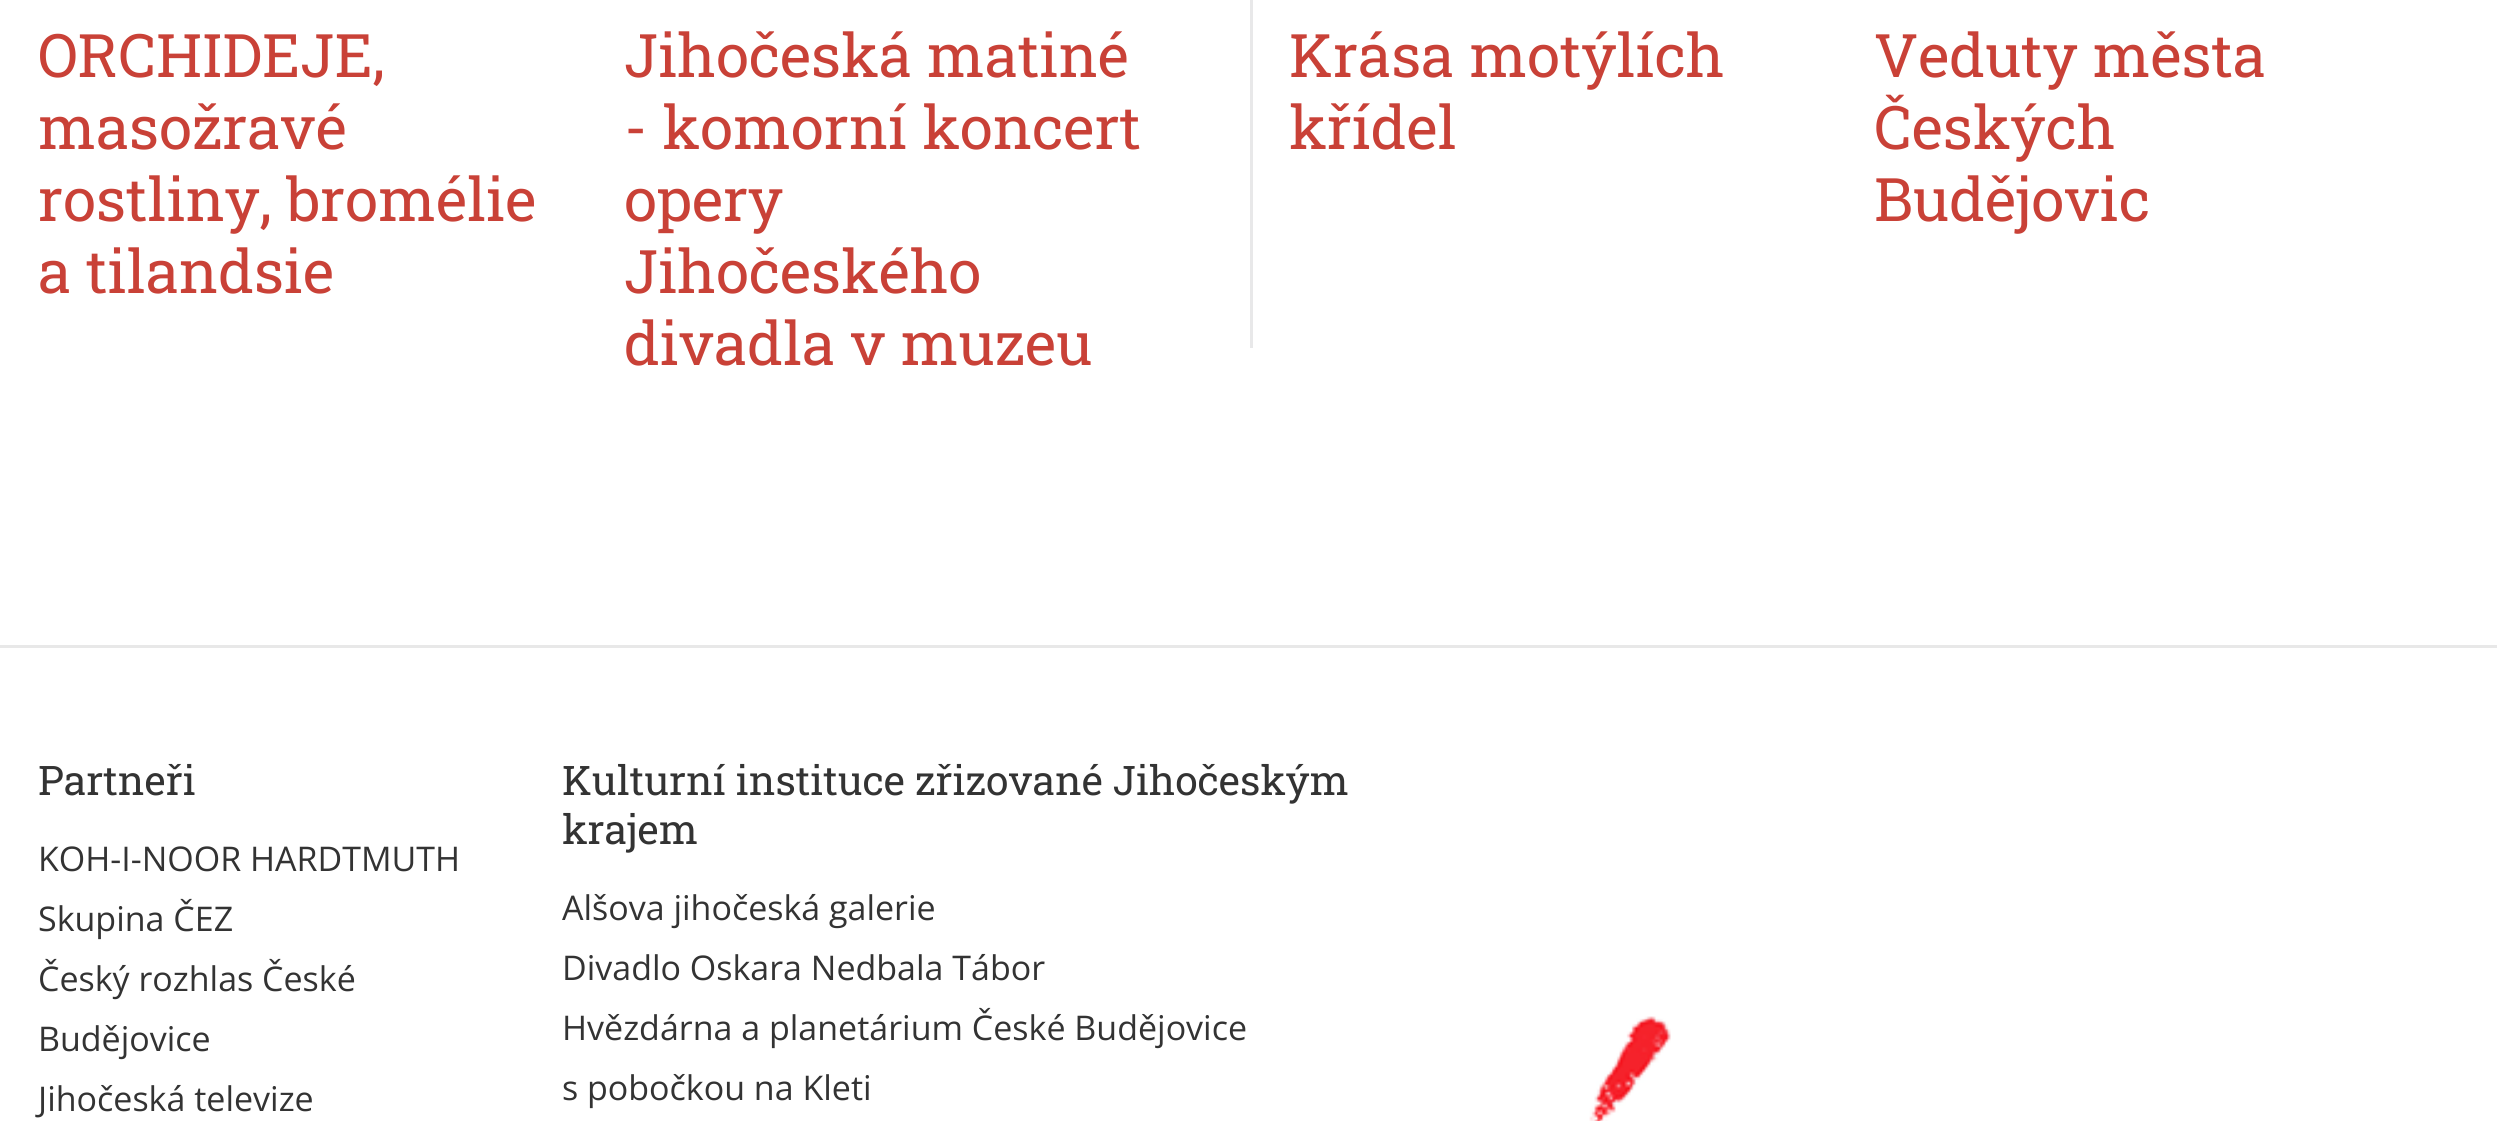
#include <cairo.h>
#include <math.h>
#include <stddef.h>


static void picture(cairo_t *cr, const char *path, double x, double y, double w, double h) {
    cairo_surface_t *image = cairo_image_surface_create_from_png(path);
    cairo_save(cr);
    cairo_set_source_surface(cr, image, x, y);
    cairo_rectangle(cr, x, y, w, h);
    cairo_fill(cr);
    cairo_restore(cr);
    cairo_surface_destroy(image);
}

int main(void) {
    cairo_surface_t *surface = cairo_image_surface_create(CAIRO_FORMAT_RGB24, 2497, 1121);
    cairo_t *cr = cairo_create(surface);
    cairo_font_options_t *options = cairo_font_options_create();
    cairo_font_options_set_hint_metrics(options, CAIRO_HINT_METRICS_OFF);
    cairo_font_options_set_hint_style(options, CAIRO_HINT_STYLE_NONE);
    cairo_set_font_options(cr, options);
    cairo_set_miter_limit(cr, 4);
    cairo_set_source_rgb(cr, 1, 1, 1);
    cairo_paint(cr);
    cairo_select_font_face(cr, "Roboto Slab", CAIRO_FONT_SLANT_NORMAL, CAIRO_FONT_WEIGHT_NORMAL);
    cairo_set_font_size(cr, 60);
    cairo_set_source_rgb(cr, 0.788, 0.255, 0.216);
    cairo_move_to(cr, 38, 77);
    cairo_show_text(cr, "ORCHIDEJE,");
    cairo_move_to(cr, 38, 149);
    cairo_show_text(cr, "masožravé");
    cairo_move_to(cr, 38, 221);
    cairo_show_text(cr, "rostliny, bromélie");
    cairo_move_to(cr, 38, 293);
    cairo_show_text(cr, "a tilandsie");
    cairo_move_to(cr, 624, 77);
    cairo_show_text(cr, "Jihočeská matiné");
    cairo_move_to(cr, 624, 149);
    cairo_show_text(cr, "- komorní koncert");
    cairo_move_to(cr, 624, 221);
    cairo_show_text(cr, "opery");
    cairo_move_to(cr, 624, 293);
    cairo_show_text(cr, "Jihočeského");
    cairo_move_to(cr, 624, 365);
    cairo_show_text(cr, "divadla v muzeu");
    cairo_set_source_rgb(cr, 0.91, 0.91, 0.914);
    cairo_rectangle(cr, 1250, 0, 3, 348);
    cairo_fill(cr);
    cairo_set_source_rgb(cr, 0.788, 0.255, 0.216);
    cairo_move_to(cr, 1289, 77);
    cairo_show_text(cr, "Krása motýlích");
    cairo_move_to(cr, 1289, 149);
    cairo_show_text(cr, "křídel");
    cairo_move_to(cr, 1874, 77);
    cairo_show_text(cr, "Veduty města");
    cairo_move_to(cr, 1874, 149);
    cairo_show_text(cr, "Českých");
    cairo_move_to(cr, 1874, 221);
    cairo_show_text(cr, "Budějovic");
    cairo_set_source_rgb(cr, 0.91, 0.91, 0.91);
    cairo_rectangle(cr, 0, 645, 2497, 3);
    cairo_fill(cr);
    cairo_set_font_size(cr, 40.75);
    cairo_set_source_rgb(cr, 0.2, 0.2, 0.2);
    cairo_move_to(cr, 38, 795);
    cairo_show_text(cr, "Partneři");
    cairo_select_font_face(cr, "Open Sans", CAIRO_FONT_SLANT_NORMAL, CAIRO_FONT_WEIGHT_NORMAL);
    cairo_set_font_size(cr, 34);
    cairo_move_to(cr, 38, 871);
    cairo_show_text(cr, "KOH-I-NOOR HARDTMUTH");
    cairo_move_to(cr, 38, 931);
    cairo_show_text(cr, "Skupina ČEZ");
    cairo_move_to(cr, 38, 991);
    cairo_show_text(cr, "Český rozhlas České");
    cairo_move_to(cr, 38, 1051);
    cairo_show_text(cr, "Budějovice");
    cairo_move_to(cr, 38, 1111);
    cairo_show_text(cr, "Jihočeská televize");
    cairo_select_font_face(cr, "Roboto Slab", CAIRO_FONT_SLANT_NORMAL, CAIRO_FONT_WEIGHT_NORMAL);
    cairo_set_font_size(cr, 40.75);
    cairo_move_to(cr, 562, 795);
    cairo_show_text(cr, "Kulturní instituce zřizované Jihočeským");
    cairo_move_to(cr, 562, 844);
    cairo_show_text(cr, "krajem");
    cairo_select_font_face(cr, "Open Sans", CAIRO_FONT_SLANT_NORMAL, CAIRO_FONT_WEIGHT_NORMAL);
    cairo_set_font_size(cr, 34);
    cairo_move_to(cr, 562, 920);
    cairo_show_text(cr, "Alšova jihočeská galerie");
    cairo_move_to(cr, 562, 980);
    cairo_show_text(cr, "Divadlo Oskara Nedbala Tábor");
    cairo_move_to(cr, 562, 1040);
    cairo_show_text(cr, "Hvězdárna a planetárium České Budějovice");
    cairo_move_to(cr, 562, 1100);
    cairo_show_text(cr, "s pobočkou na Kleti");
    picture(cr, "img1.png", 1589, 1016, 82, 105);
    cairo_surface_write_to_png(surface, "page.png");
    cairo_font_options_destroy(options);
    cairo_destroy(cr);
    cairo_surface_destroy(surface);
    return 0;
}
